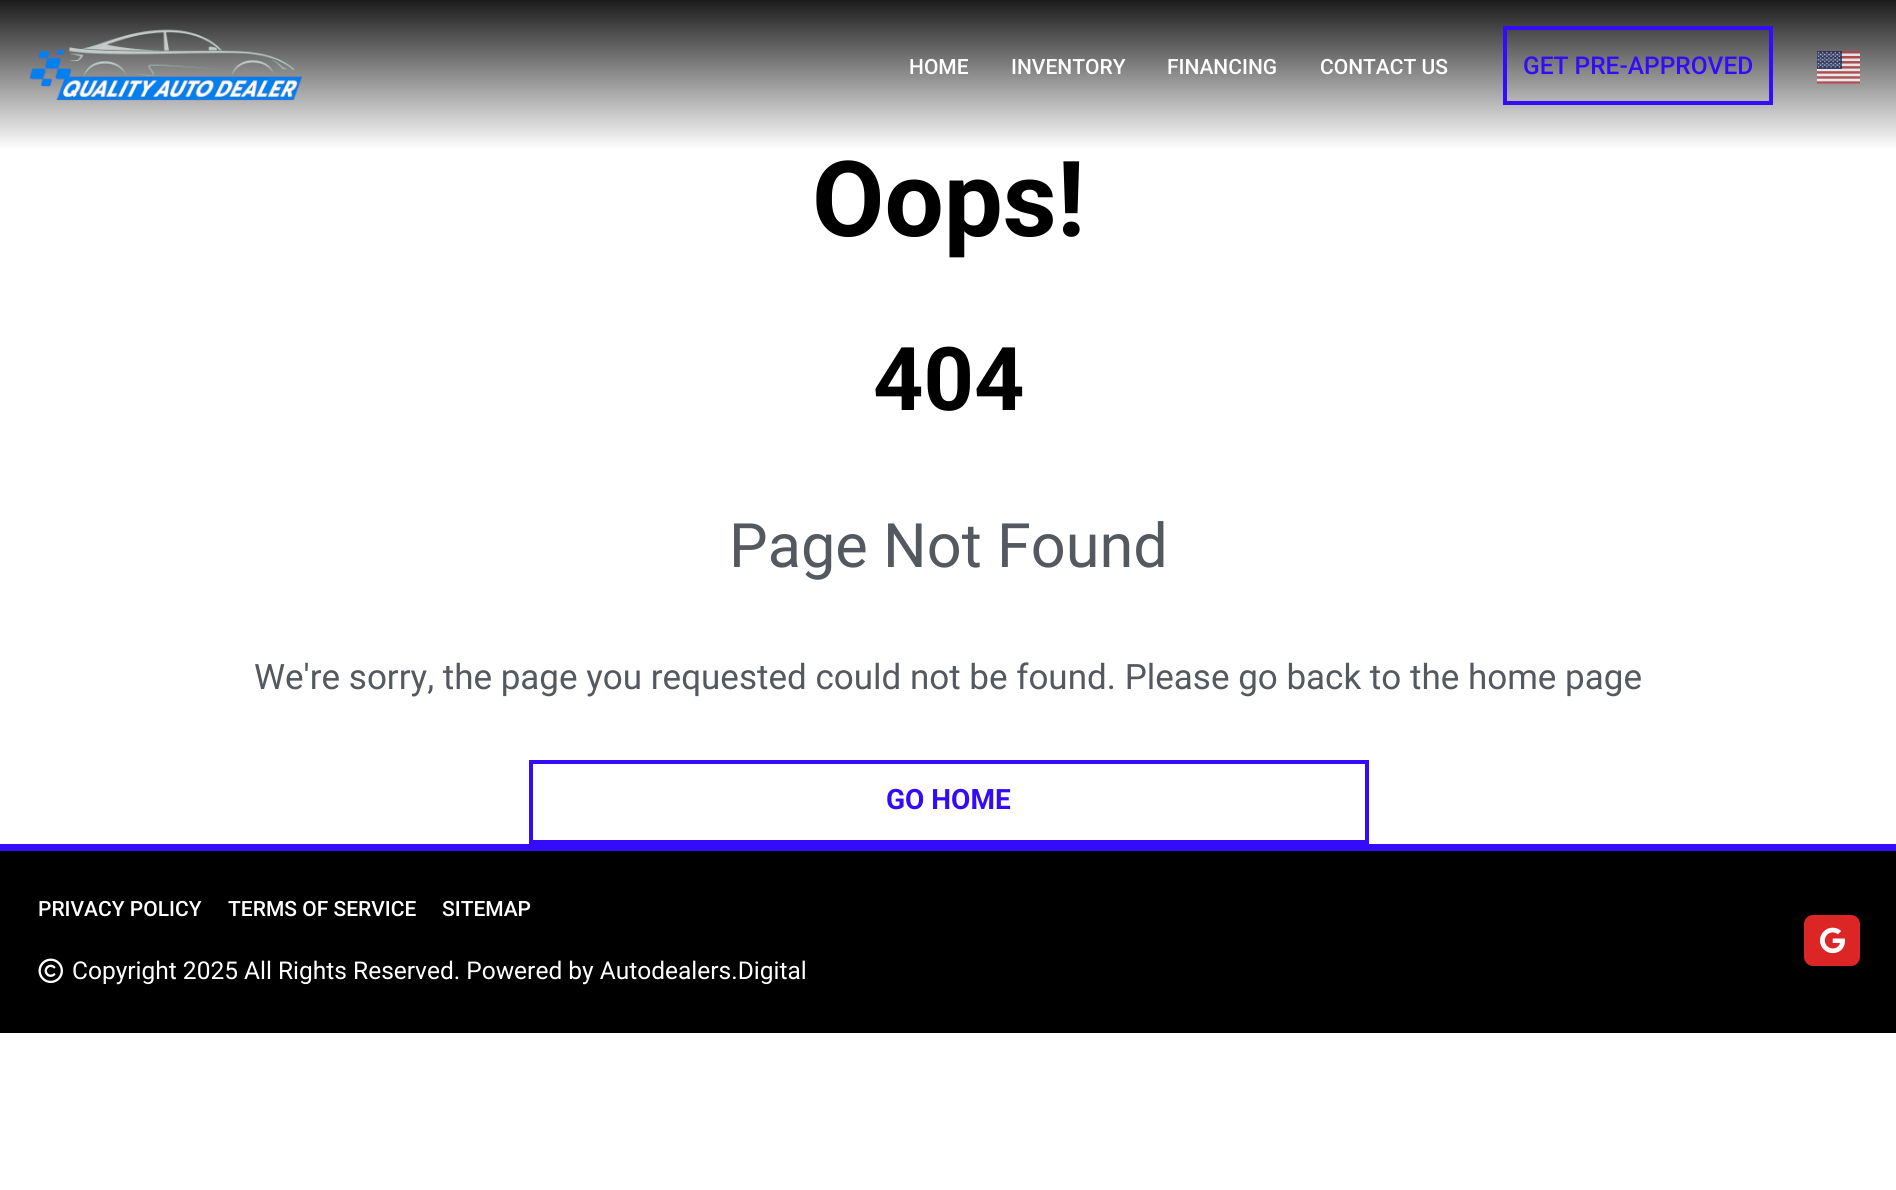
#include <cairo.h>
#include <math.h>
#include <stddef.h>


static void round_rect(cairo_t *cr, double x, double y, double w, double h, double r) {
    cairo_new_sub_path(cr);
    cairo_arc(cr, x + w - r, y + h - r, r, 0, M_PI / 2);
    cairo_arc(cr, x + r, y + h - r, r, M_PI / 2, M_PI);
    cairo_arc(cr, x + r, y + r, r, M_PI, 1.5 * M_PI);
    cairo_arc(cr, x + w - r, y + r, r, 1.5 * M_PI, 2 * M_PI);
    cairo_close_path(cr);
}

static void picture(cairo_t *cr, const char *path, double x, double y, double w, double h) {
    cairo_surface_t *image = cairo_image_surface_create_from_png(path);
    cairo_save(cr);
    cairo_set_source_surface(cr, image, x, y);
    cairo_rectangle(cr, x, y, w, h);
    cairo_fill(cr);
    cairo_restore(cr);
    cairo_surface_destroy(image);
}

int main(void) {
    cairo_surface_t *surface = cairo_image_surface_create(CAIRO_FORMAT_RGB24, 1896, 1190);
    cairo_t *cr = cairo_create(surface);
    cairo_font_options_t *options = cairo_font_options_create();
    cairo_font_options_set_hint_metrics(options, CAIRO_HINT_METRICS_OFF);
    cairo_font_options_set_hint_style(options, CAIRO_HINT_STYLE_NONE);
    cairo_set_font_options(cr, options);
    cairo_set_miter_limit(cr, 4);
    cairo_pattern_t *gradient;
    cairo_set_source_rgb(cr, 1, 1, 1);
    cairo_paint(cr);
    gradient = cairo_pattern_create_linear(949, -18, 949, 149);
    cairo_pattern_add_color_stop_rgba(gradient, 0, 0, 0, 0, 1);
    cairo_pattern_add_color_stop_rgba(gradient, 1, 0.996, 0.996, 0.996, 1);
    cairo_set_source(cr, gradient);
    cairo_pattern_destroy(gradient);
    cairo_rectangle(cr, 0, 0, 1896, 148);
    cairo_fill(cr);
    picture(cr, "img1.png", 29, 29, 274, 72);
    cairo_select_font_face(cr, "Roboto Medium", CAIRO_FONT_SLANT_NORMAL, CAIRO_FONT_WEIGHT_NORMAL);
    cairo_set_font_size(cr, 21);
    cairo_set_source_rgb(cr, 1, 1, 1);
    cairo_move_to(cr, 909, 74);
    cairo_show_text(cr, "HOME");
    cairo_move_to(cr, 1011, 74);
    cairo_show_text(cr, "INVENTORY");
    cairo_move_to(cr, 1167, 74);
    cairo_show_text(cr, "FINANCING");
    cairo_move_to(cr, 1320, 74);
    cairo_show_text(cr, "CONTACT US");
    cairo_rectangle(cr, 1505, 28, 266, 75);
    cairo_set_source_rgb(cr, 0.204, 0.047, 0.973);
    cairo_set_line_width(cr, 4);
    cairo_stroke(cr);
    cairo_set_font_size(cr, 24.5);
    cairo_move_to(cr, 1523, 74);
    cairo_show_text(cr, "GET PRE-APPROVED");
    picture(cr, "img2.png", 1817, 51, 43, 33);
    cairo_select_font_face(cr, "Roboto", CAIRO_FONT_SLANT_NORMAL, CAIRO_FONT_WEIGHT_BOLD);
    cairo_set_font_size(cr, 105);
    cairo_set_source_rgb(cr, 0, 0, 0);
    cairo_move_to(cr, 812, 236);
    cairo_show_text(cr, "Oops!");
    cairo_set_font_size(cr, 88);
    cairo_move_to(cr, 873, 410);
    cairo_show_text(cr, "404");
    cairo_select_font_face(cr, "Roboto", CAIRO_FONT_SLANT_NORMAL, CAIRO_FONT_WEIGHT_NORMAL);
    cairo_set_font_size(cr, 61.25);
    cairo_set_source_rgb(cr, 0.329, 0.349, 0.373);
    cairo_move_to(cr, 729, 567);
    cairo_show_text(cr, "Page Not Found");
    cairo_set_font_size(cr, 35);
    cairo_move_to(cr, 254, 689);
    cairo_show_text(cr, "We're sorry, the page you requested could not be found. Please go back to the home page");
    cairo_rectangle(cr, 531, 762, 836, 80);
    cairo_set_source_rgb(cr, 0.204, 0.047, 0.973);
    cairo_stroke(cr);
    cairo_select_font_face(cr, "Roboto", CAIRO_FONT_SLANT_NORMAL, CAIRO_FONT_WEIGHT_BOLD);
    cairo_set_font_size(cr, 28);
    cairo_move_to(cr, 886, 809);
    cairo_show_text(cr, "GO HOME");
    cairo_rectangle(cr, 0, 844, 1896, 7);
    cairo_fill(cr);
    cairo_set_source_rgb(cr, 0, 0, 0);
    cairo_rectangle(cr, 0, 851, 1896, 182);
    cairo_fill(cr);
    cairo_select_font_face(cr, "Roboto Medium", CAIRO_FONT_SLANT_NORMAL, CAIRO_FONT_WEIGHT_NORMAL);
    cairo_set_font_size(cr, 21);
    cairo_set_source_rgb(cr, 1, 1, 1);
    cairo_move_to(cr, 38, 916);
    cairo_show_text(cr, "PRIVACY POLICY");
    cairo_move_to(cr, 228, 916);
    cairo_show_text(cr, "TERMS OF SERVICE");
    cairo_move_to(cr, 442, 916);
    cairo_show_text(cr, "SITEMAP");
    picture(cr, "img3.png", 38, 958, 25, 26);
    cairo_select_font_face(cr, "Roboto", CAIRO_FONT_SLANT_NORMAL, CAIRO_FONT_WEIGHT_NORMAL);
    cairo_set_font_size(cr, 24.5);
    cairo_move_to(cr, 72, 979);
    cairo_show_text(cr, "Copyright 2025 All Rights Reserved. Powered by Autodealers.Digital");
    cairo_set_source_rgb(cr, 0.863, 0.149, 0.149);
    round_rect(cr, 1804, 915, 56, 51, 9);
    cairo_fill(cr);
    picture(cr, "img4.png", 1820, 927, 25, 27);
    cairo_surface_write_to_png(surface, "page.png");
    cairo_font_options_destroy(options);
    cairo_destroy(cr);
    cairo_surface_destroy(surface);
    return 0;
}
